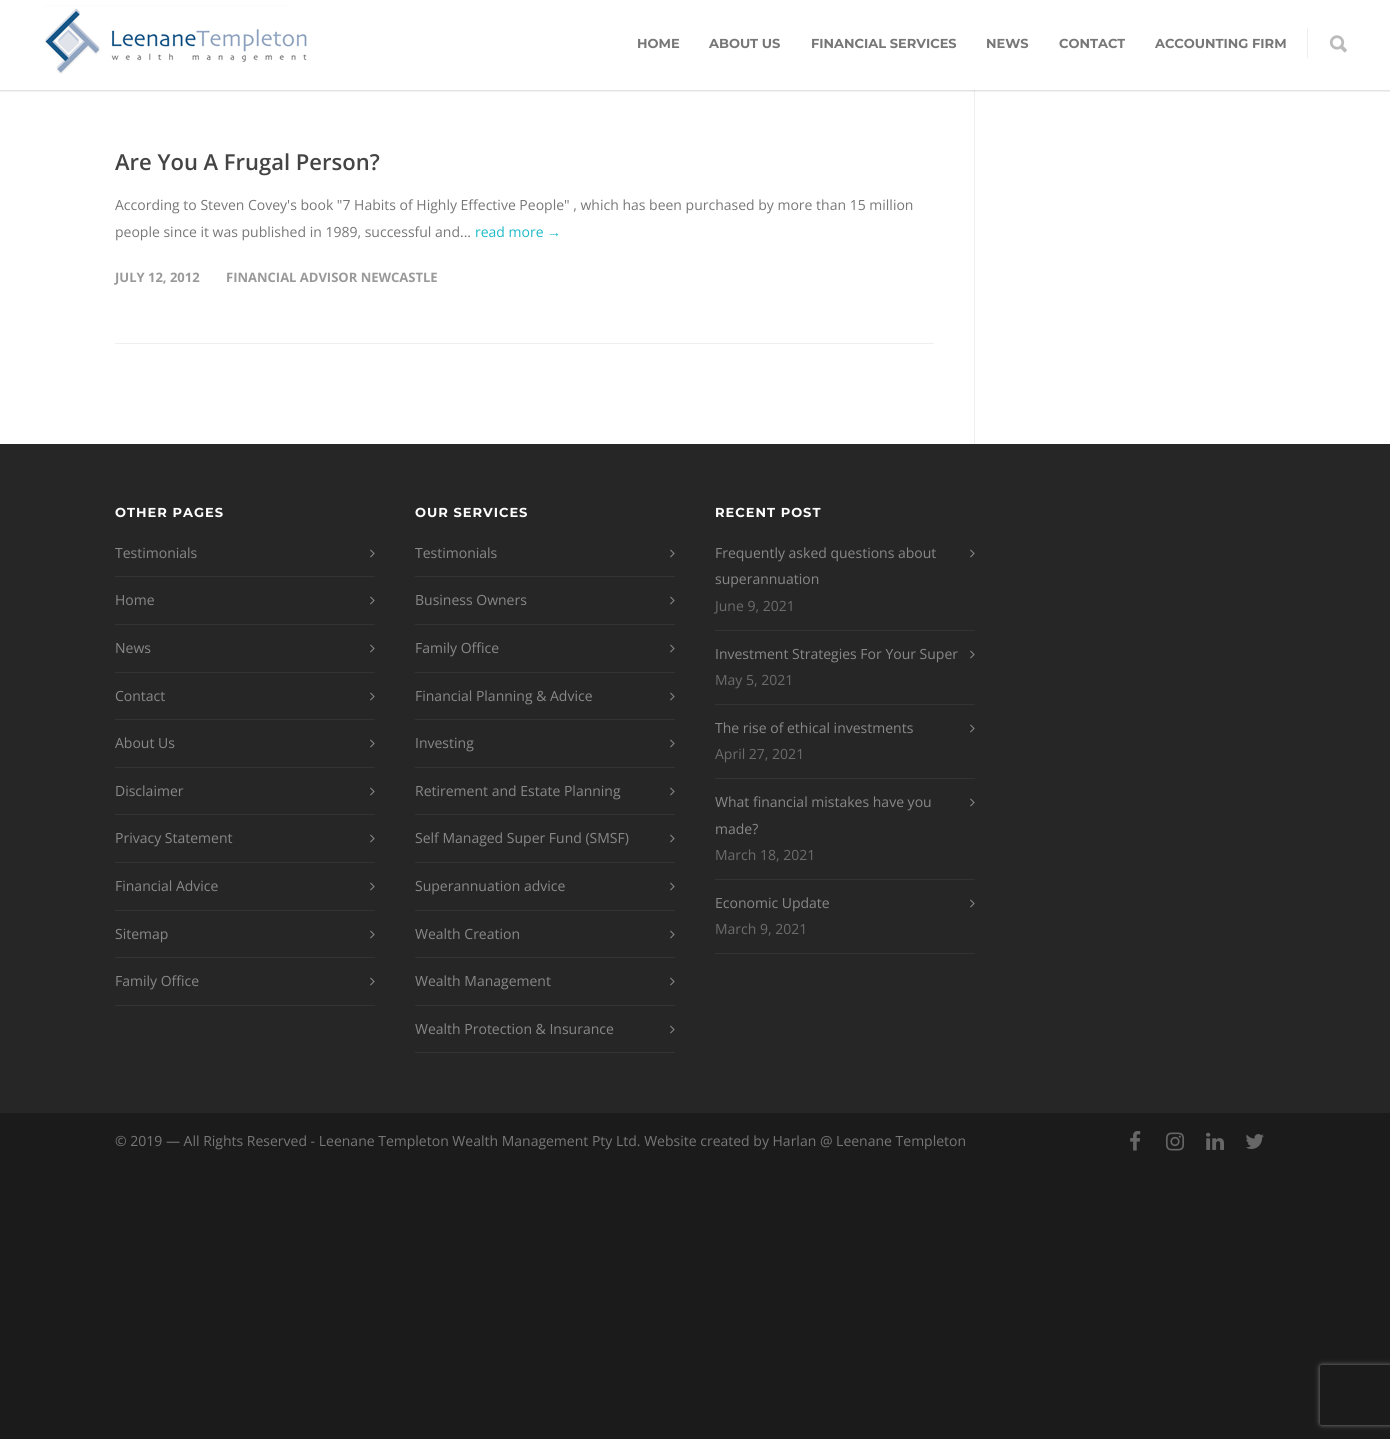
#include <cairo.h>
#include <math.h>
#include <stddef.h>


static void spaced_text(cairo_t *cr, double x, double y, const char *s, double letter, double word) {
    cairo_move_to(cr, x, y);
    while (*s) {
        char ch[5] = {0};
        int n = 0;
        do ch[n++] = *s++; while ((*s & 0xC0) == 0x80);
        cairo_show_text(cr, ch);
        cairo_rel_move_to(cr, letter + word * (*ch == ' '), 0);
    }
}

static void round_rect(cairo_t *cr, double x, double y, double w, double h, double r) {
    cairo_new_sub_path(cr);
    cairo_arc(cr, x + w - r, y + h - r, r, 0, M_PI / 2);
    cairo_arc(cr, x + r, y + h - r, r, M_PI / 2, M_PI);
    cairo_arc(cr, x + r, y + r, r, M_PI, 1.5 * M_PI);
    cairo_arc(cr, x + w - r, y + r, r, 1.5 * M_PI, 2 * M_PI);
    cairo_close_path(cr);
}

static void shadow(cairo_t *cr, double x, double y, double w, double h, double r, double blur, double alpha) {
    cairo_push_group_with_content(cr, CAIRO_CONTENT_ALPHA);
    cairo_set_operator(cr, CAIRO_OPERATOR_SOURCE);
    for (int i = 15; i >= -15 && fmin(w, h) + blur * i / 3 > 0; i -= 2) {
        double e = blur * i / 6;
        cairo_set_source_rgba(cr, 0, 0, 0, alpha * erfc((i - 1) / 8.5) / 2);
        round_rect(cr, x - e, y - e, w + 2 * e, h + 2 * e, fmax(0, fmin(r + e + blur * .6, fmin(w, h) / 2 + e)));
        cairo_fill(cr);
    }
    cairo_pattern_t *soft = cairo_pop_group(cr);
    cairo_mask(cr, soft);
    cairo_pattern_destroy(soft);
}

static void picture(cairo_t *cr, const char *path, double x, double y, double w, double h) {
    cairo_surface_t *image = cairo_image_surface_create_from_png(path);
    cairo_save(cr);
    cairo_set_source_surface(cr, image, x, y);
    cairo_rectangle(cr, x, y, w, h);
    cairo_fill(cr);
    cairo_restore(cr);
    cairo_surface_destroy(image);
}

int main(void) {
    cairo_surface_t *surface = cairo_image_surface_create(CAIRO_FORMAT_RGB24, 1390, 1439);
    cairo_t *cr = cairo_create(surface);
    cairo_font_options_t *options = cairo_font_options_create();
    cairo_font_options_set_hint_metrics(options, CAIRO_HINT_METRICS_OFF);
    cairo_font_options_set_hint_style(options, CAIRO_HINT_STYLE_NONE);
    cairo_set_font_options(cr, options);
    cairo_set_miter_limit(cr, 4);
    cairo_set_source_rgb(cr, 0.106, 0.106, 0.106);
    cairo_paint(cr);
    cairo_set_source_rgb(cr, 1, 1, 1);
    cairo_rectangle(cr, 0, 0, 1390, 444);
    cairo_fill(cr);
    cairo_set_source_rgb(cr, 0.937, 0.937, 0.937);
    cairo_rectangle(cr, 974, 90, 1, 354);
    cairo_fill(cr);
    cairo_save(cr);
    cairo_rectangle(cr, 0, 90, 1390, 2);
    cairo_clip(cr);
    cairo_set_source_rgb(cr, 0, 0, 0);
    shadow(cr, -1, -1, 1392, 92, 0, 1, 0.16);
    cairo_restore(cr);
    picture(cr, "img1.png", 44, 5, 263, 69);
    cairo_select_font_face(cr, "Montserrat", CAIRO_FONT_SLANT_NORMAL, CAIRO_FONT_WEIGHT_BOLD);
    cairo_set_font_size(cr, 13);
    cairo_set_source_rgb(cr, 0.467, 0.467, 0.467);
    cairo_move_to(cr, 637, 48);
    cairo_show_text(cr, "HOME");
    cairo_move_to(cr, 709, 48);
    cairo_show_text(cr, "ABOUT US");
    cairo_move_to(cr, 811, 48);
    cairo_show_text(cr, "FINANCIAL SERVICES");
    cairo_move_to(cr, 986, 48);
    cairo_show_text(cr, "NEWS");
    cairo_move_to(cr, 1059, 48);
    cairo_show_text(cr, "CONTACT");
    cairo_move_to(cr, 1155, 48);
    cairo_show_text(cr, "ACCOUNTING FIRM");
    cairo_set_source_rgb(cr, 0.937, 0.937, 0.937);
    cairo_rectangle(cr, 1307, 28, 1, 30);
    cairo_fill(cr);
    picture(cr, "img2.png", 1329, 35, 18, 18);
    cairo_rectangle(cr, 115, 343, 819, 1);
    cairo_fill(cr);
    cairo_select_font_face(cr, "Open Sans SemiBold", CAIRO_FONT_SLANT_NORMAL, CAIRO_FONT_WEIGHT_NORMAL);
    cairo_set_font_size(cr, 22);
    cairo_set_source_rgb(cr, 0.267, 0.267, 0.267);
    cairo_move_to(cr, 115, 170);
    cairo_show_text(cr, "Are You A Frugal Person?");
    cairo_select_font_face(cr, "Open Sans", CAIRO_FONT_SLANT_NORMAL, CAIRO_FONT_WEIGHT_NORMAL);
    cairo_set_font_size(cr, 14);
    cairo_set_source_rgb(cr, 0.467, 0.467, 0.467);
    cairo_move_to(cr, 115, 210);
    cairo_show_text(cr, "According to Steven Covey's book \"7 Habits of Highly Effective People\" , which has been purchased by more than 15 million");
    cairo_move_to(cr, 115, 237);
    cairo_show_text(cr, "people since it was published in 1989, successful and...");
    cairo_set_source_rgb(cr, 0.11, 0.729, 0.784);
    cairo_move_to(cr, 475, 237);
    cairo_show_text(cr, "read more");
    cairo_select_font_face(cr, "Liberation Sans", CAIRO_FONT_SLANT_NORMAL, CAIRO_FONT_WEIGHT_NORMAL);
    cairo_move_to(cr, 547, 237);
    cairo_show_text(cr, "→");
    cairo_select_font_face(cr, "Open Sans", CAIRO_FONT_SLANT_NORMAL, CAIRO_FONT_WEIGHT_BOLD);
    cairo_set_font_size(cr, 13);
    cairo_set_source_rgb(cr, 0.6, 0.6, 0.6);
    cairo_move_to(cr, 115, 282);
    cairo_show_text(cr, "JULY 12, 2012");
    cairo_move_to(cr, 226, 282);
    cairo_show_text(cr, "FINANCIAL ADVISOR NEWCASTLE");
    cairo_set_source_rgb(cr, 0.149, 0.149, 0.149);
    cairo_rectangle(cr, 0, 444, 1390, 669);
    cairo_fill(cr);
    cairo_select_font_face(cr, "Montserrat", CAIRO_FONT_SLANT_NORMAL, CAIRO_FONT_WEIGHT_BOLD);
    cairo_set_source_rgb(cr, 1, 1, 1);
    spaced_text(cr, 115, 517, "OTHER PAGES", 1, 0);
    cairo_set_source_rgb(cr, 0.2, 0.2, 0.2);
    cairo_rectangle(cr, 115, 576, 260, 1);
    cairo_fill(cr);
    cairo_select_font_face(cr, "Open Sans", CAIRO_FONT_SLANT_NORMAL, CAIRO_FONT_WEIGHT_NORMAL);
    cairo_set_font_size(cr, 14);
    cairo_set_source_rgb(cr, 0.533, 0.533, 0.533);
    cairo_move_to(cr, 115, 558);
    cairo_show_text(cr, "Testimonials");
    picture(cr, "img3.png", 370, 549, 5, 9);
    cairo_set_source_rgb(cr, 0.2, 0.2, 0.2);
    cairo_rectangle(cr, 115, 624, 260, 1);
    cairo_fill(cr);
    cairo_set_source_rgb(cr, 0.533, 0.533, 0.533);
    cairo_move_to(cr, 115, 605);
    cairo_show_text(cr, "Home");
    picture(cr, "img3.png", 370, 596, 5, 9);
    cairo_set_source_rgb(cr, 0.2, 0.2, 0.2);
    cairo_rectangle(cr, 115, 672, 260, 1);
    cairo_fill(cr);
    cairo_set_source_rgb(cr, 0.533, 0.533, 0.533);
    cairo_move_to(cr, 115, 653);
    cairo_show_text(cr, "News");
    picture(cr, "img3.png", 370, 644, 5, 9);
    cairo_set_source_rgb(cr, 0.2, 0.2, 0.2);
    cairo_rectangle(cr, 115, 719, 260, 1);
    cairo_fill(cr);
    cairo_set_source_rgb(cr, 0.533, 0.533, 0.533);
    cairo_move_to(cr, 115, 701);
    cairo_show_text(cr, "Contact");
    picture(cr, "img3.png", 370, 692, 5, 9);
    cairo_set_source_rgb(cr, 0.2, 0.2, 0.2);
    cairo_rectangle(cr, 115, 767, 260, 1);
    cairo_fill(cr);
    cairo_set_source_rgb(cr, 0.533, 0.533, 0.533);
    cairo_move_to(cr, 115, 748);
    cairo_show_text(cr, "About Us");
    picture(cr, "img3.png", 370, 739, 5, 9);
    cairo_set_source_rgb(cr, 0.2, 0.2, 0.2);
    cairo_rectangle(cr, 115, 814, 260, 1);
    cairo_fill(cr);
    cairo_set_source_rgb(cr, 0.533, 0.533, 0.533);
    cairo_move_to(cr, 115, 796);
    cairo_show_text(cr, "Disclaimer");
    picture(cr, "img3.png", 370, 787, 5, 9);
    cairo_set_source_rgb(cr, 0.2, 0.2, 0.2);
    cairo_rectangle(cr, 115, 862, 260, 1);
    cairo_fill(cr);
    cairo_set_source_rgb(cr, 0.533, 0.533, 0.533);
    cairo_move_to(cr, 115, 843);
    cairo_show_text(cr, "Privacy Statement");
    picture(cr, "img3.png", 370, 834, 5, 9);
    cairo_set_source_rgb(cr, 0.2, 0.2, 0.2);
    cairo_rectangle(cr, 115, 910, 260, 1);
    cairo_fill(cr);
    cairo_set_source_rgb(cr, 0.533, 0.533, 0.533);
    cairo_move_to(cr, 115, 891);
    cairo_show_text(cr, "Financial Advice");
    picture(cr, "img3.png", 370, 882, 5, 9);
    cairo_set_source_rgb(cr, 0.2, 0.2, 0.2);
    cairo_rectangle(cr, 115, 957, 260, 1);
    cairo_fill(cr);
    cairo_set_source_rgb(cr, 0.533, 0.533, 0.533);
    cairo_move_to(cr, 115, 939);
    cairo_show_text(cr, "Sitemap");
    picture(cr, "img3.png", 370, 930, 5, 9);
    cairo_set_source_rgb(cr, 0.2, 0.2, 0.2);
    cairo_rectangle(cr, 115, 1005, 260, 1);
    cairo_fill(cr);
    cairo_set_source_rgb(cr, 0.533, 0.533, 0.533);
    cairo_move_to(cr, 115, 986);
    cairo_show_text(cr, "Family Office");
    picture(cr, "img3.png", 370, 977, 5, 9);
    cairo_select_font_face(cr, "Montserrat", CAIRO_FONT_SLANT_NORMAL, CAIRO_FONT_WEIGHT_BOLD);
    cairo_set_font_size(cr, 13);
    cairo_set_source_rgb(cr, 1, 1, 1);
    spaced_text(cr, 415, 517, "OUR SERVICES", 1, 0);
    cairo_set_source_rgb(cr, 0.2, 0.2, 0.2);
    cairo_rectangle(cr, 415, 576, 260, 1);
    cairo_fill(cr);
    cairo_select_font_face(cr, "Open Sans", CAIRO_FONT_SLANT_NORMAL, CAIRO_FONT_WEIGHT_NORMAL);
    cairo_set_font_size(cr, 14);
    cairo_set_source_rgb(cr, 0.533, 0.533, 0.533);
    cairo_move_to(cr, 415, 558);
    cairo_show_text(cr, "Testimonials");
    picture(cr, "img3.png", 670, 549, 5, 9);
    cairo_set_source_rgb(cr, 0.2, 0.2, 0.2);
    cairo_rectangle(cr, 415, 624, 260, 1);
    cairo_fill(cr);
    cairo_set_source_rgb(cr, 0.533, 0.533, 0.533);
    cairo_move_to(cr, 415, 605);
    cairo_show_text(cr, "Business Owners");
    picture(cr, "img3.png", 670, 596, 5, 9);
    cairo_set_source_rgb(cr, 0.2, 0.2, 0.2);
    cairo_rectangle(cr, 415, 672, 260, 1);
    cairo_fill(cr);
    cairo_set_source_rgb(cr, 0.533, 0.533, 0.533);
    cairo_move_to(cr, 415, 653);
    cairo_show_text(cr, "Family Office");
    picture(cr, "img3.png", 670, 644, 5, 9);
    cairo_set_source_rgb(cr, 0.2, 0.2, 0.2);
    cairo_rectangle(cr, 415, 719, 260, 1);
    cairo_fill(cr);
    cairo_set_source_rgb(cr, 0.533, 0.533, 0.533);
    cairo_move_to(cr, 415, 701);
    cairo_show_text(cr, "Financial Planning & Advice");
    picture(cr, "img3.png", 670, 692, 5, 9);
    cairo_set_source_rgb(cr, 0.2, 0.2, 0.2);
    cairo_rectangle(cr, 415, 767, 260, 1);
    cairo_fill(cr);
    cairo_set_source_rgb(cr, 0.533, 0.533, 0.533);
    cairo_move_to(cr, 415, 748);
    cairo_show_text(cr, "Investing");
    picture(cr, "img3.png", 670, 739, 5, 9);
    cairo_set_source_rgb(cr, 0.2, 0.2, 0.2);
    cairo_rectangle(cr, 415, 814, 260, 1);
    cairo_fill(cr);
    cairo_set_source_rgb(cr, 0.533, 0.533, 0.533);
    cairo_move_to(cr, 415, 796);
    cairo_show_text(cr, "Retirement and Estate Planning");
    picture(cr, "img3.png", 670, 787, 5, 9);
    cairo_set_source_rgb(cr, 0.2, 0.2, 0.2);
    cairo_rectangle(cr, 415, 862, 260, 1);
    cairo_fill(cr);
    cairo_set_source_rgb(cr, 0.533, 0.533, 0.533);
    cairo_move_to(cr, 415, 843);
    cairo_show_text(cr, "Self Managed Super Fund (SMSF)");
    picture(cr, "img3.png", 670, 834, 5, 9);
    cairo_set_source_rgb(cr, 0.2, 0.2, 0.2);
    cairo_rectangle(cr, 415, 910, 260, 1);
    cairo_fill(cr);
    cairo_set_source_rgb(cr, 0.533, 0.533, 0.533);
    cairo_move_to(cr, 415, 891);
    cairo_show_text(cr, "Superannuation advice");
    picture(cr, "img3.png", 670, 882, 5, 9);
    cairo_set_source_rgb(cr, 0.2, 0.2, 0.2);
    cairo_rectangle(cr, 415, 957, 260, 1);
    cairo_fill(cr);
    cairo_set_source_rgb(cr, 0.533, 0.533, 0.533);
    cairo_move_to(cr, 415, 939);
    cairo_show_text(cr, "Wealth Creation");
    picture(cr, "img3.png", 670, 930, 5, 9);
    cairo_set_source_rgb(cr, 0.2, 0.2, 0.2);
    cairo_rectangle(cr, 415, 1005, 260, 1);
    cairo_fill(cr);
    cairo_set_source_rgb(cr, 0.533, 0.533, 0.533);
    cairo_move_to(cr, 415, 986);
    cairo_show_text(cr, "Wealth Management");
    picture(cr, "img3.png", 670, 977, 5, 9);
    cairo_set_source_rgb(cr, 0.2, 0.2, 0.2);
    cairo_rectangle(cr, 415, 1052, 260, 1);
    cairo_fill(cr);
    cairo_set_source_rgb(cr, 0.533, 0.533, 0.533);
    cairo_move_to(cr, 415, 1034);
    cairo_show_text(cr, "Wealth Protection & Insurance");
    picture(cr, "img3.png", 670, 1025, 5, 9);
    cairo_select_font_face(cr, "Montserrat", CAIRO_FONT_SLANT_NORMAL, CAIRO_FONT_WEIGHT_BOLD);
    cairo_set_font_size(cr, 13);
    cairo_set_source_rgb(cr, 1, 1, 1);
    spaced_text(cr, 715, 517, "RECENT POST", 1, 0);
    cairo_set_source_rgb(cr, 0.2, 0.2, 0.2);
    cairo_rectangle(cr, 715, 630, 260, 1);
    cairo_fill(cr);
    cairo_select_font_face(cr, "Open Sans", CAIRO_FONT_SLANT_NORMAL, CAIRO_FONT_WEIGHT_NORMAL);
    cairo_set_font_size(cr, 14);
    cairo_set_source_rgb(cr, 0.533, 0.533, 0.533);
    cairo_move_to(cr, 715, 558);
    cairo_show_text(cr, "Frequently asked questions about");
    cairo_move_to(cr, 715, 584);
    cairo_show_text(cr, "superannuation");
    picture(cr, "img3.png", 970, 549, 5, 9);
    cairo_set_source_rgb(cr, 0.42, 0.42, 0.42);
    cairo_move_to(cr, 715, 611);
    cairo_show_text(cr, "June 9, 2021");
    cairo_set_source_rgb(cr, 0.2, 0.2, 0.2);
    cairo_rectangle(cr, 715, 704, 260, 1);
    cairo_fill(cr);
    cairo_set_source_rgb(cr, 0.533, 0.533, 0.533);
    cairo_move_to(cr, 715, 659);
    cairo_show_text(cr, "Investment Strategies For Your Super");
    picture(cr, "img3.png", 970, 650, 5, 9);
    cairo_set_source_rgb(cr, 0.42, 0.42, 0.42);
    cairo_move_to(cr, 715, 685);
    cairo_show_text(cr, "May 5, 2021");
    cairo_set_source_rgb(cr, 0.2, 0.2, 0.2);
    cairo_rectangle(cr, 715, 778, 260, 1);
    cairo_fill(cr);
    cairo_set_source_rgb(cr, 0.533, 0.533, 0.533);
    cairo_move_to(cr, 715, 733);
    cairo_show_text(cr, "The rise of ethical investments");
    picture(cr, "img3.png", 970, 724, 5, 9);
    cairo_set_source_rgb(cr, 0.42, 0.42, 0.42);
    cairo_move_to(cr, 715, 759);
    cairo_show_text(cr, "April 27, 2021");
    cairo_set_source_rgb(cr, 0.2, 0.2, 0.2);
    cairo_rectangle(cr, 715, 879, 260, 1);
    cairo_fill(cr);
    cairo_set_source_rgb(cr, 0.533, 0.533, 0.533);
    cairo_move_to(cr, 715, 807);
    cairo_show_text(cr, "What financial mistakes have you");
    cairo_move_to(cr, 715, 834);
    cairo_show_text(cr, "made?");
    picture(cr, "img3.png", 970, 798, 5, 9);
    cairo_set_source_rgb(cr, 0.42, 0.42, 0.42);
    cairo_move_to(cr, 715, 860);
    cairo_show_text(cr, "March 18, 2021");
    cairo_set_source_rgb(cr, 0.2, 0.2, 0.2);
    cairo_rectangle(cr, 715, 953, 260, 1);
    cairo_fill(cr);
    cairo_set_source_rgb(cr, 0.533, 0.533, 0.533);
    cairo_move_to(cr, 715, 908);
    cairo_show_text(cr, "Economic Update");
    picture(cr, "img3.png", 970, 899, 5, 9);
    cairo_set_source_rgb(cr, 0.42, 0.42, 0.42);
    cairo_move_to(cr, 715, 934);
    cairo_show_text(cr, "March 9, 2021");
    cairo_set_source_rgb(cr, 0.467, 0.467, 0.467);
    cairo_move_to(cr, 115, 1146);
    cairo_show_text(cr, "© 2019 — All Rights Reserved - Leenane Templeton Wealth Management Pty Ltd. Website created by Harlan @ Leenane Templeton");
    picture(cr, "img4.png", 1130, 1131, 11, 20);
    picture(cr, "img5.png", 1166, 1132, 18, 19);
    picture(cr, "img6.png", 1206, 1132, 18, 18);
    picture(cr, "img7.png", 1246, 1134, 18, 15);
    cairo_save(cr);
    cairo_set_fill_rule(cr, CAIRO_FILL_RULE_EVEN_ODD);
    cairo_new_path(cr);
    cairo_move_to(cr, 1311, 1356);
    cairo_line_to(cr, 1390, 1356);
    cairo_line_to(cr, 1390, 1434);
    cairo_line_to(cr, 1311, 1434);
    cairo_close_path(cr);
    cairo_move_to(cr, 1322, 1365);
    cairo_line_to(cr, 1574, 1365);
    cairo_curve_to(cr, 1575, 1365, 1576, 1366, 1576, 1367);
    cairo_line_to(cr, 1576, 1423);
    cairo_curve_to(cr, 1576, 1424, 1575, 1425, 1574, 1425);
    cairo_line_to(cr, 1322, 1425);
    cairo_curve_to(cr, 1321, 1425, 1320, 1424, 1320, 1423);
    cairo_line_to(cr, 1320, 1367);
    cairo_curve_to(cr, 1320, 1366, 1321, 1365, 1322, 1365);
    cairo_close_path(cr);
    cairo_clip(cr);
    cairo_set_source_rgb(cr, 0.502, 0.502, 0.502);
    shadow(cr, 1320, 1365, 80, 60, 2, 2.5, 1);
    cairo_restore(cr);
    cairo_surface_write_to_png(surface, "page.png");
    cairo_font_options_destroy(options);
    cairo_destroy(cr);
    cairo_surface_destroy(surface);
    return 0;
}
